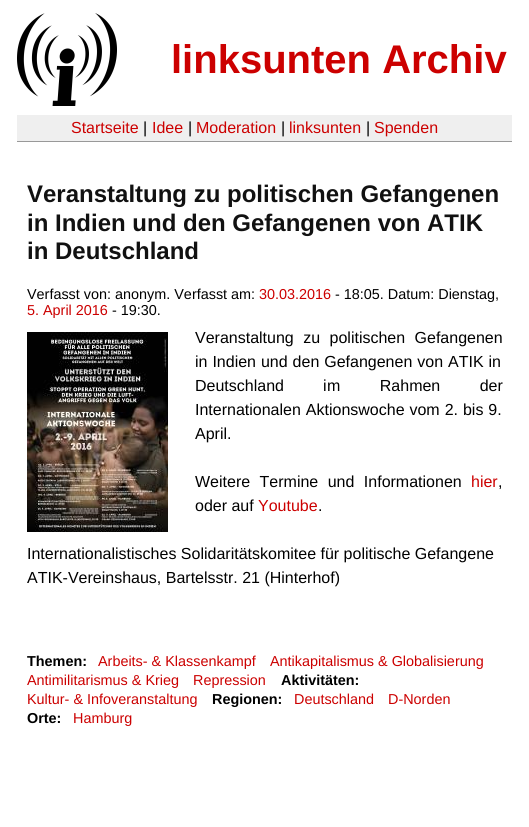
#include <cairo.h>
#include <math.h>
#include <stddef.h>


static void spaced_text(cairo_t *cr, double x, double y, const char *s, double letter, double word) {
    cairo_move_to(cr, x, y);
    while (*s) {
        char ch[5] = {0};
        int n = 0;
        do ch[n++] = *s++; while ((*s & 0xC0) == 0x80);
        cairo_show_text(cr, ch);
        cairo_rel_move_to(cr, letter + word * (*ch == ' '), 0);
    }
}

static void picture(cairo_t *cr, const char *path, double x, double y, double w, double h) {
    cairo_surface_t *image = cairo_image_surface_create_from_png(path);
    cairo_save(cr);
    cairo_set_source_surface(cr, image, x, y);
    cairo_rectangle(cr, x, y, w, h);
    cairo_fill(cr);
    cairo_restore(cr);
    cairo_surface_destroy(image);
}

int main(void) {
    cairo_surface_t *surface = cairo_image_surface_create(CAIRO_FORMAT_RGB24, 529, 827);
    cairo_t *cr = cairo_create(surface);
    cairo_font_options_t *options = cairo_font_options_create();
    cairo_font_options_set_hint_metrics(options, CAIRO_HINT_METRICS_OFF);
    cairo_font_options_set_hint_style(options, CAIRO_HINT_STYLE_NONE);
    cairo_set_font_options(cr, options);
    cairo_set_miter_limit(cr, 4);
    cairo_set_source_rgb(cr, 1, 1, 1);
    cairo_paint(cr);
    picture(cr, "img1.png", 17, 13, 100, 93);
    cairo_select_font_face(cr, "Liberation Sans", CAIRO_FONT_SLANT_NORMAL, CAIRO_FONT_WEIGHT_BOLD);
    cairo_set_font_size(cr, 40);
    cairo_set_source_rgb(cr, 0.8, 0, 0);
    cairo_move_to(cr, 171, 73);
    cairo_show_text(cr, "linksunten Archiv");
    cairo_set_source_rgb(cr, 0.937, 0.937, 0.937);
    cairo_rectangle(cr, 17, 115, 495, 26);
    cairo_fill(cr);
    cairo_set_source_rgb(cr, 0.6, 0.6, 0.6);
    cairo_rectangle(cr, 17, 141, 495, 1);
    cairo_fill(cr);
    cairo_select_font_face(cr, "Liberation Sans", CAIRO_FONT_SLANT_NORMAL, CAIRO_FONT_WEIGHT_NORMAL);
    cairo_set_font_size(cr, 16);
    cairo_set_source_rgb(cr, 0.8, 0, 0);
    cairo_move_to(cr, 71, 133);
    cairo_show_text(cr, "Startseite");
    cairo_set_source_rgb(cr, 0, 0, 0);
    cairo_move_to(cr, 143, 133);
    cairo_show_text(cr, "|");
    cairo_set_source_rgb(cr, 0.8, 0, 0);
    cairo_move_to(cr, 152, 133);
    cairo_show_text(cr, "Idee");
    cairo_set_source_rgb(cr, 0, 0, 0);
    cairo_move_to(cr, 188, 133);
    cairo_show_text(cr, "|");
    cairo_set_source_rgb(cr, 0.8, 0, 0);
    cairo_move_to(cr, 196, 133);
    cairo_show_text(cr, "Moderation");
    cairo_set_source_rgb(cr, 0, 0, 0);
    cairo_move_to(cr, 281, 133);
    cairo_show_text(cr, "|");
    cairo_set_source_rgb(cr, 0.8, 0, 0);
    cairo_move_to(cr, 289, 133);
    cairo_show_text(cr, "linksunten");
    cairo_set_source_rgb(cr, 0, 0, 0);
    cairo_move_to(cr, 366, 133);
    cairo_show_text(cr, "|");
    cairo_set_source_rgb(cr, 0.8, 0, 0);
    cairo_move_to(cr, 374, 133);
    cairo_show_text(cr, "Spenden");
    cairo_select_font_face(cr, "Liberation Sans", CAIRO_FONT_SLANT_NORMAL, CAIRO_FONT_WEIGHT_BOLD);
    cairo_set_font_size(cr, 24);
    cairo_set_source_rgb(cr, 0.067, 0.067, 0.067);
    cairo_move_to(cr, 27, 202);
    cairo_show_text(cr, "Veranstaltung zu politischen Gefangenen");
    cairo_move_to(cr, 27, 231);
    cairo_show_text(cr, "in Indien und den Gefangenen von ATIK");
    cairo_move_to(cr, 27, 259);
    cairo_show_text(cr, "in Deutschland");
    cairo_select_font_face(cr, "Liberation Sans", CAIRO_FONT_SLANT_NORMAL, CAIRO_FONT_WEIGHT_NORMAL);
    cairo_set_font_size(cr, 14.4);
    cairo_set_source_rgb(cr, 0, 0, 0);
    cairo_move_to(cr, 27, 299);
    cairo_show_text(cr, "Verfasst von: anonym. Verfasst am:");
    cairo_set_source_rgb(cr, 0.8, 0, 0);
    cairo_move_to(cr, 259, 299);
    cairo_show_text(cr, "30.03.2016");
    cairo_set_source_rgb(cr, 0, 0, 0);
    cairo_move_to(cr, 335, 299);
    cairo_show_text(cr, "- 18:05. Datum: Dienstag,");
    cairo_set_source_rgb(cr, 0.8, 0, 0);
    cairo_move_to(cr, 27, 315);
    cairo_show_text(cr, "5. April 2016");
    cairo_set_source_rgb(cr, 0, 0, 0);
    cairo_move_to(cr, 112, 315);
    cairo_show_text(cr, "- 19:30.");
    cairo_set_font_size(cr, 16);
    spaced_text(cr, 195, 343, "Veranstaltung zu politischen Gefangenen", 0, 5);
    spaced_text(cr, 195, 367, "in Indien und den Gefangenen von ATIK in", 0, 0.5);
    cairo_move_to(cr, 195, 391);
    cairo_show_text(cr, "Deutschland");
    cairo_move_to(cr, 323, 391);
    cairo_show_text(cr, "i");
    spaced_text(cr, 327, 391, "m Rahmen der", 0, 35);
    spaced_text(cr, 195, 415, "Internationalen Aktionswoche vom 2. bis 9.", 0, 0.5);
    cairo_move_to(cr, 195, 439);
    cairo_show_text(cr, "April.");
    spaced_text(cr, 195, 487, "Weitere Termine und Informationen", 0, 5);
    cairo_set_source_rgb(cr, 0.8, 0, 0);
    cairo_move_to(cr, 471, 487);
    cairo_show_text(cr, "hier");
    cairo_set_source_rgb(cr, 0, 0, 0);
    cairo_move_to(cr, 498, 487);
    cairo_show_text(cr, ",");
    cairo_move_to(cr, 195, 511);
    cairo_show_text(cr, "oder auf");
    cairo_set_source_rgb(cr, 0.8, 0, 0);
    cairo_move_to(cr, 258, 511);
    cairo_show_text(cr, "Youtube");
    cairo_set_source_rgb(cr, 0, 0, 0);
    cairo_move_to(cr, 318, 511);
    cairo_show_text(cr, ".");
    cairo_move_to(cr, 27, 559);
    cairo_show_text(cr, "Internationalistisches Solidaritätskomitee für politische Gefangene");
    cairo_move_to(cr, 27, 583);
    cairo_show_text(cr, "ATIK-Vereinshaus, Bartelsstr. 21 (Hinterhof)");
    picture(cr, "img2.png", 27, 332, 141, 200);
    cairo_select_font_face(cr, "Liberation Sans", CAIRO_FONT_SLANT_NORMAL, CAIRO_FONT_WEIGHT_BOLD);
    cairo_set_font_size(cr, 14.4);
    cairo_move_to(cr, 27, 666);
    cairo_show_text(cr, "Themen:");
    cairo_select_font_face(cr, "Liberation Sans", CAIRO_FONT_SLANT_NORMAL, CAIRO_FONT_WEIGHT_NORMAL);
    cairo_set_source_rgb(cr, 0.8, 0, 0);
    cairo_move_to(cr, 98, 666);
    cairo_show_text(cr, "Arbeits- & Klassenkampf");
    cairo_move_to(cr, 270, 666);
    cairo_show_text(cr, "Antikapitalismus & Globalisierung");
    cairo_move_to(cr, 27, 685);
    cairo_show_text(cr, "Antimilitarismus & Krieg");
    cairo_move_to(cr, 193, 685);
    cairo_show_text(cr, "Repression");
    cairo_select_font_face(cr, "Liberation Sans", CAIRO_FONT_SLANT_NORMAL, CAIRO_FONT_WEIGHT_BOLD);
    cairo_set_source_rgb(cr, 0, 0, 0);
    cairo_move_to(cr, 281, 685);
    cairo_show_text(cr, "Aktivitäten:");
    cairo_select_font_face(cr, "Liberation Sans", CAIRO_FONT_SLANT_NORMAL, CAIRO_FONT_WEIGHT_NORMAL);
    cairo_set_source_rgb(cr, 0.8, 0, 0);
    cairo_move_to(cr, 27, 704);
    cairo_show_text(cr, "Kultur- & Infoveranstaltung");
    cairo_select_font_face(cr, "Liberation Sans", CAIRO_FONT_SLANT_NORMAL, CAIRO_FONT_WEIGHT_BOLD);
    cairo_set_source_rgb(cr, 0, 0, 0);
    cairo_move_to(cr, 212, 704);
    cairo_show_text(cr, "Regionen:");
    cairo_select_font_face(cr, "Liberation Sans", CAIRO_FONT_SLANT_NORMAL, CAIRO_FONT_WEIGHT_NORMAL);
    cairo_set_source_rgb(cr, 0.8, 0, 0);
    cairo_move_to(cr, 294, 704);
    cairo_show_text(cr, "Deutschland");
    cairo_move_to(cr, 388, 704);
    cairo_show_text(cr, "D-Norden");
    cairo_select_font_face(cr, "Liberation Sans", CAIRO_FONT_SLANT_NORMAL, CAIRO_FONT_WEIGHT_BOLD);
    cairo_set_source_rgb(cr, 0, 0, 0);
    cairo_move_to(cr, 27, 723);
    cairo_show_text(cr, "Orte:");
    cairo_select_font_face(cr, "Liberation Sans", CAIRO_FONT_SLANT_NORMAL, CAIRO_FONT_WEIGHT_NORMAL);
    cairo_set_source_rgb(cr, 0.8, 0, 0);
    cairo_move_to(cr, 73, 723);
    cairo_show_text(cr, "Hamburg");
    cairo_surface_write_to_png(surface, "page.png");
    cairo_font_options_destroy(options);
    cairo_destroy(cr);
    cairo_surface_destroy(surface);
    return 0;
}
